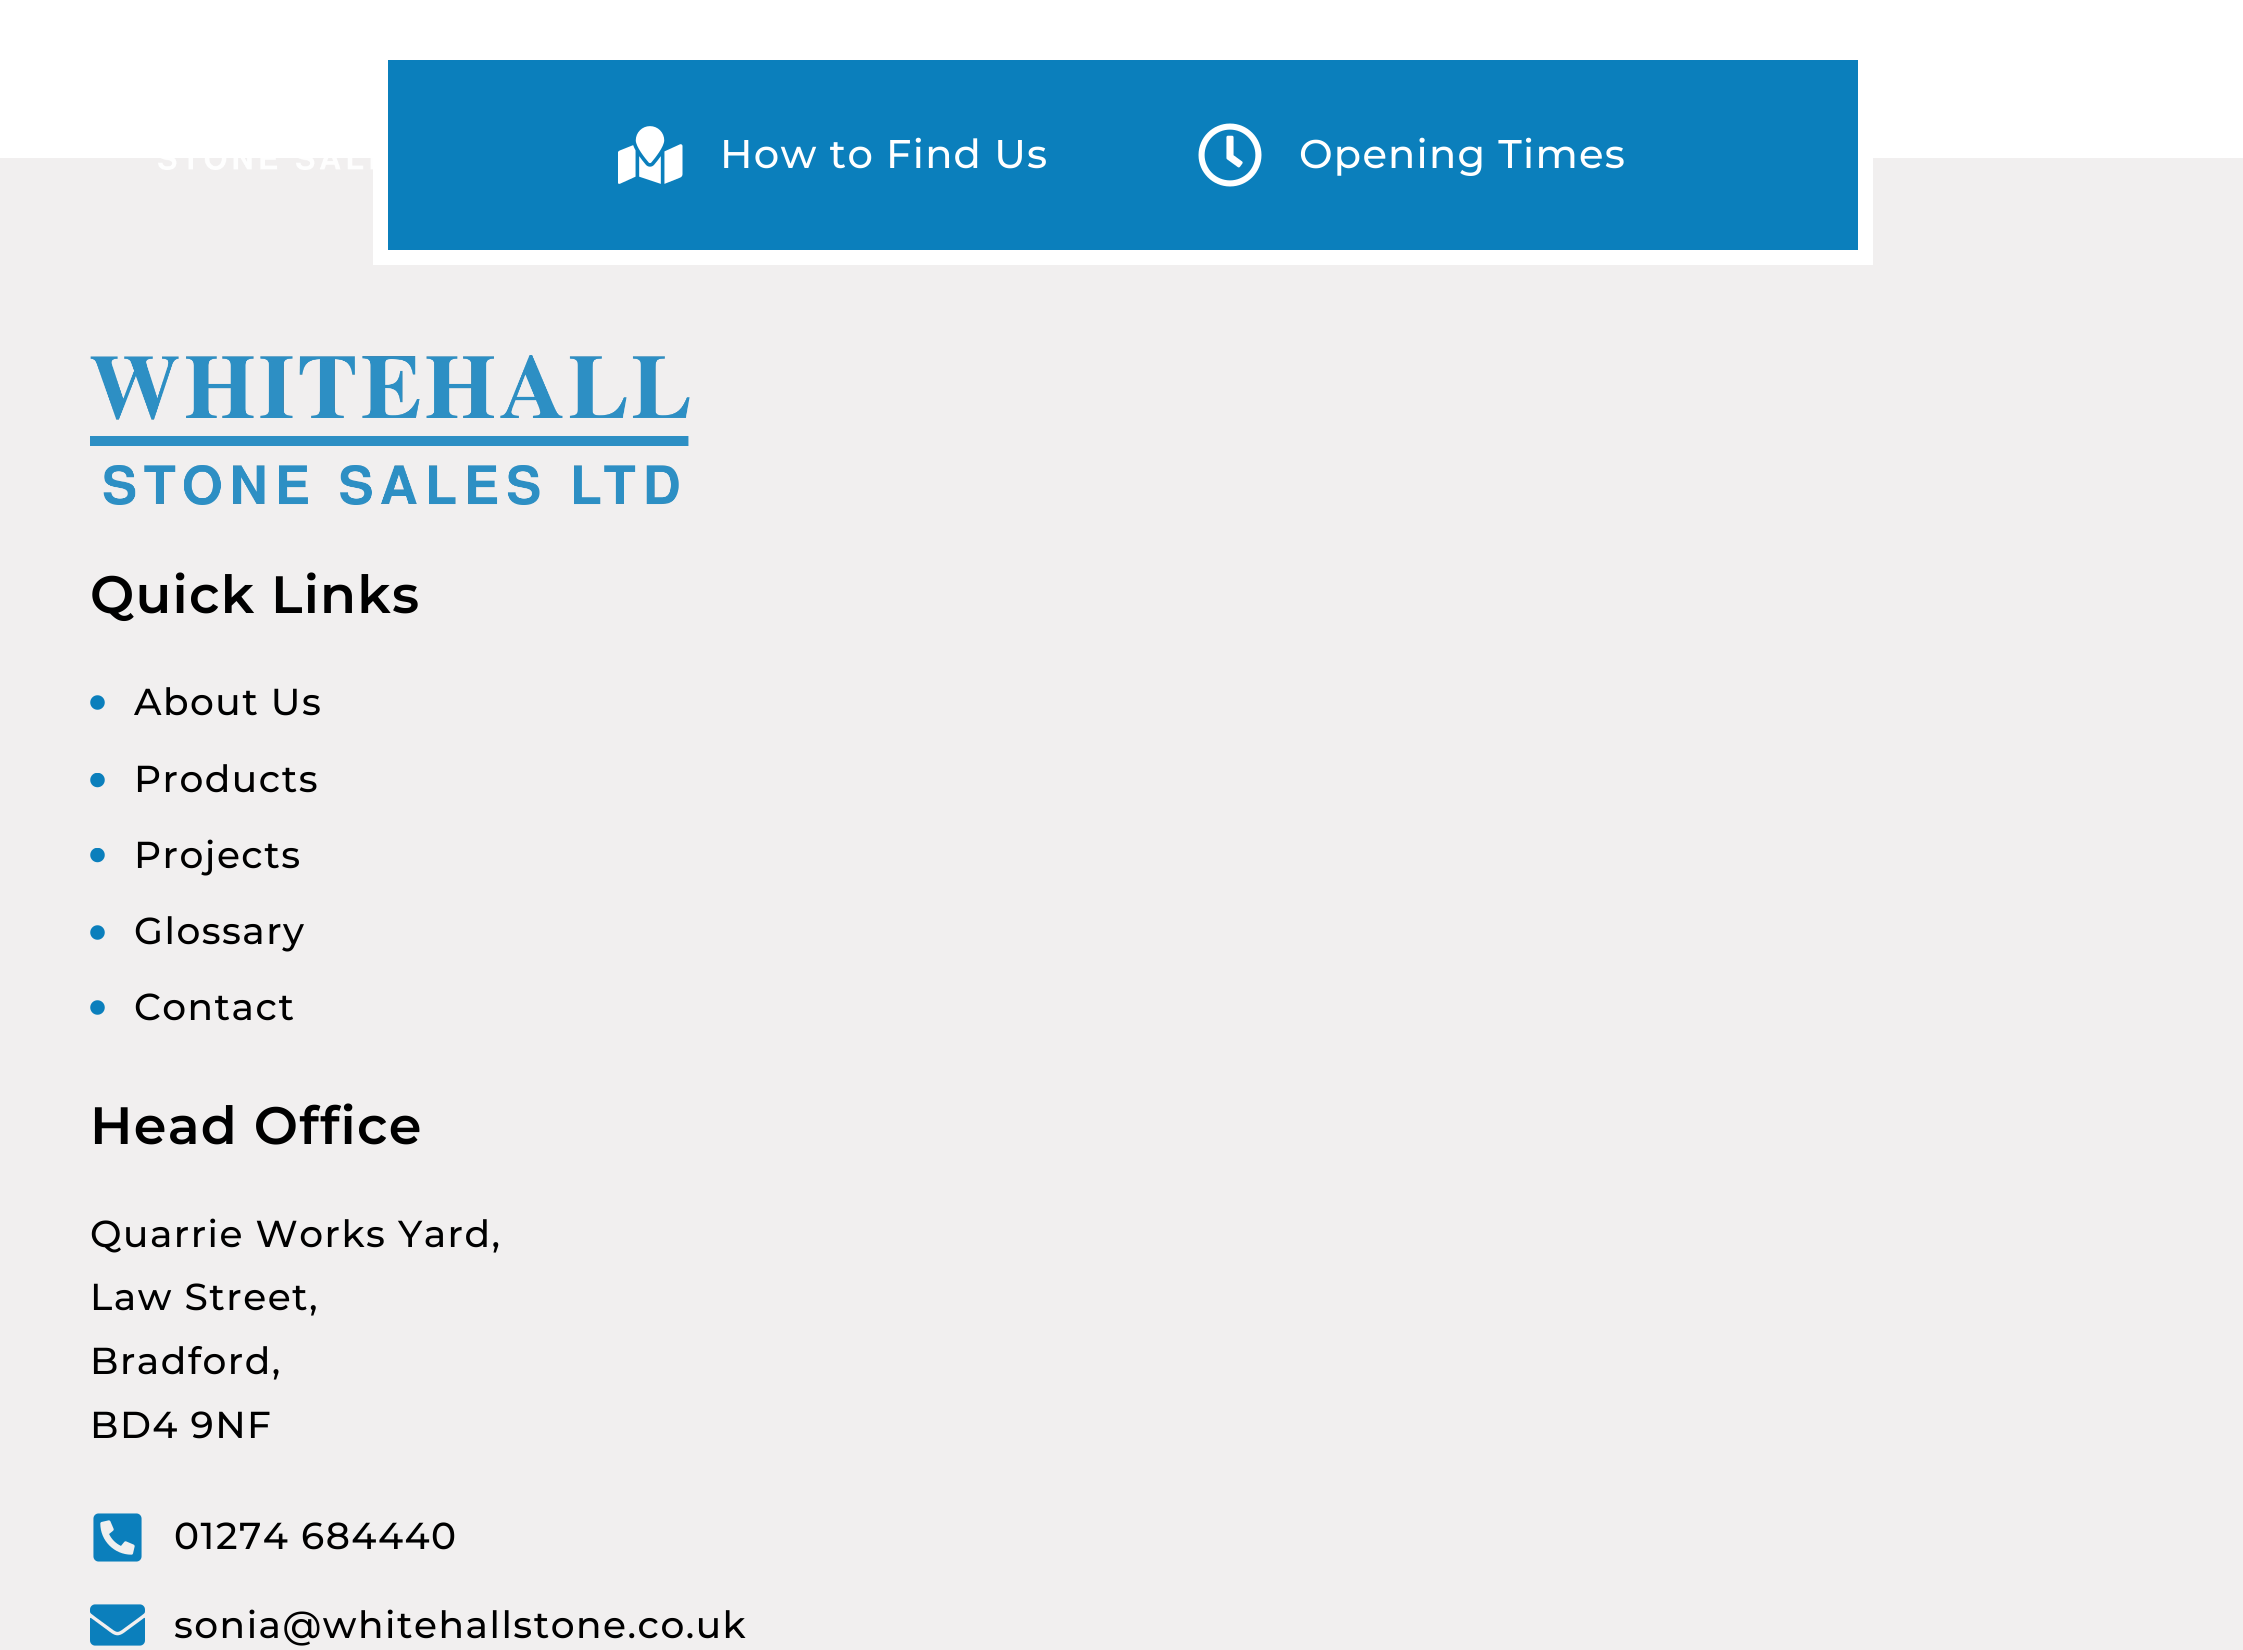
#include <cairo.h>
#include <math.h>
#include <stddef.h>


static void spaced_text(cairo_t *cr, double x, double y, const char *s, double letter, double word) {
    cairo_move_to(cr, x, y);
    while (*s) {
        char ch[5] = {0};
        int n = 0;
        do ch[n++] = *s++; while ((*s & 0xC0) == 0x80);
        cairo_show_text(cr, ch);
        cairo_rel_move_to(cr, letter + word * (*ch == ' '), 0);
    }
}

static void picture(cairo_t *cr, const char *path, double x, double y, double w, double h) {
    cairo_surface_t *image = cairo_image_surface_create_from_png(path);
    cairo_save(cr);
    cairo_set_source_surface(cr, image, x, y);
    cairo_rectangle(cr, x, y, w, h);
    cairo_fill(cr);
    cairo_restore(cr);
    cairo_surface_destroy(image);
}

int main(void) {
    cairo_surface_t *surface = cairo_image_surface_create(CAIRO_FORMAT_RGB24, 2243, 1650);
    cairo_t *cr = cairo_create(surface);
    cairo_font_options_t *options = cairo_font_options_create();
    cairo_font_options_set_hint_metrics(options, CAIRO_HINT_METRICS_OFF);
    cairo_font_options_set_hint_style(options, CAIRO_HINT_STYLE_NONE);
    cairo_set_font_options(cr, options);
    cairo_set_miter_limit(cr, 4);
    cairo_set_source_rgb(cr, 1, 1, 1);
    cairo_paint(cr);
    cairo_set_source_rgb(cr, 0.945, 0.937, 0.937);
    cairo_rectangle(cr, 0, 158, 2243, 1492);
    cairo_fill(cr);
    cairo_set_source_rgb(cr, 0.043, 0.498, 0.737);
    cairo_rectangle(cr, 380.5, 52.5, 1485, 205);
    cairo_fill_preserve(cr);
    cairo_set_source_rgb(cr, 1, 1, 1);
    cairo_set_line_width(cr, 15);
    cairo_stroke(cr);
    picture(cr, "img1.png", 618, 126, 65, 58);
    cairo_select_font_face(cr, "Montserrat Medium", CAIRO_FONT_SLANT_NORMAL, CAIRO_FONT_WEIGHT_NORMAL);
    cairo_set_font_size(cr, 40);
    spaced_text(cr, 720, 168, "How to Find Us", 1.25, 0);
    picture(cr, "img2.png", 1198, 123, 64, 64);
    spaced_text(cr, 1299, 168, "Opening Times", 1.25, 0);
    picture(cr, "img3.png", 90, 355, 600, 150);
    cairo_select_font_face(cr, "Montserrat SemiBold", CAIRO_FONT_SLANT_NORMAL, CAIRO_FONT_WEIGHT_NORMAL);
    cairo_set_font_size(cr, 52.5);
    cairo_set_source_rgb(cr, 0, 0, 0);
    spaced_text(cr, 90, 613, "Quick Links", 1.25, 0);
    picture(cr, "img4.png", 90, 695, 15, 15);
    cairo_select_font_face(cr, "Montserrat Medium", CAIRO_FONT_SLANT_NORMAL, CAIRO_FONT_WEIGHT_NORMAL);
    cairo_set_font_size(cr, 37.5);
    spaced_text(cr, 134, 715, "About Us", 1.5, 0);
    picture(cr, "img5.png", 90, 773, 15, 15);
    spaced_text(cr, 134, 792, "Products", 1.5, 0);
    picture(cr, "img5.png", 90, 848, 15, 15);
    spaced_text(cr, 134, 868, "Projects", 1.5, 0);
    picture(cr, "img4.png", 90, 925, 15, 15);
    spaced_text(cr, 134, 944, "Glossary", 1.5, 0);
    picture(cr, "img4.png", 90, 1000, 15, 15);
    spaced_text(cr, 134, 1020, "Contact", 1.5, 0);
    cairo_select_font_face(cr, "Montserrat SemiBold", CAIRO_FONT_SLANT_NORMAL, CAIRO_FONT_WEIGHT_NORMAL);
    cairo_set_font_size(cr, 52.5);
    spaced_text(cr, 90, 1144, "Head Office", 1.25, 0);
    cairo_select_font_face(cr, "Montserrat Medium", CAIRO_FONT_SLANT_NORMAL, CAIRO_FONT_WEIGHT_NORMAL);
    cairo_set_font_size(cr, 37.5);
    spaced_text(cr, 90, 1247, "Quarrie Works Yard,", 1.5, 0);
    spaced_text(cr, 90, 1310, "Law Street,", 1.5, 0);
    spaced_text(cr, 90, 1374, "Bradford,", 1.5, 0);
    spaced_text(cr, 90, 1438, "BD4 9NF", 1.5, 0);
    picture(cr, "img6.png", 93, 1513, 49, 49);
    spaced_text(cr, 174, 1549, "01274 684440", 1.5, 0);
    picture(cr, "img7.png", 90, 1604, 55, 42);
    spaced_text(cr, 174, 1638, "sonia@whitehallstone.co.uk", 1.5, 0);
    picture(cr, "img8.png", 158, 158, 215, 12);
    cairo_surface_write_to_png(surface, "page.png");
    cairo_font_options_destroy(options);
    cairo_destroy(cr);
    cairo_surface_destroy(surface);
    return 0;
}
